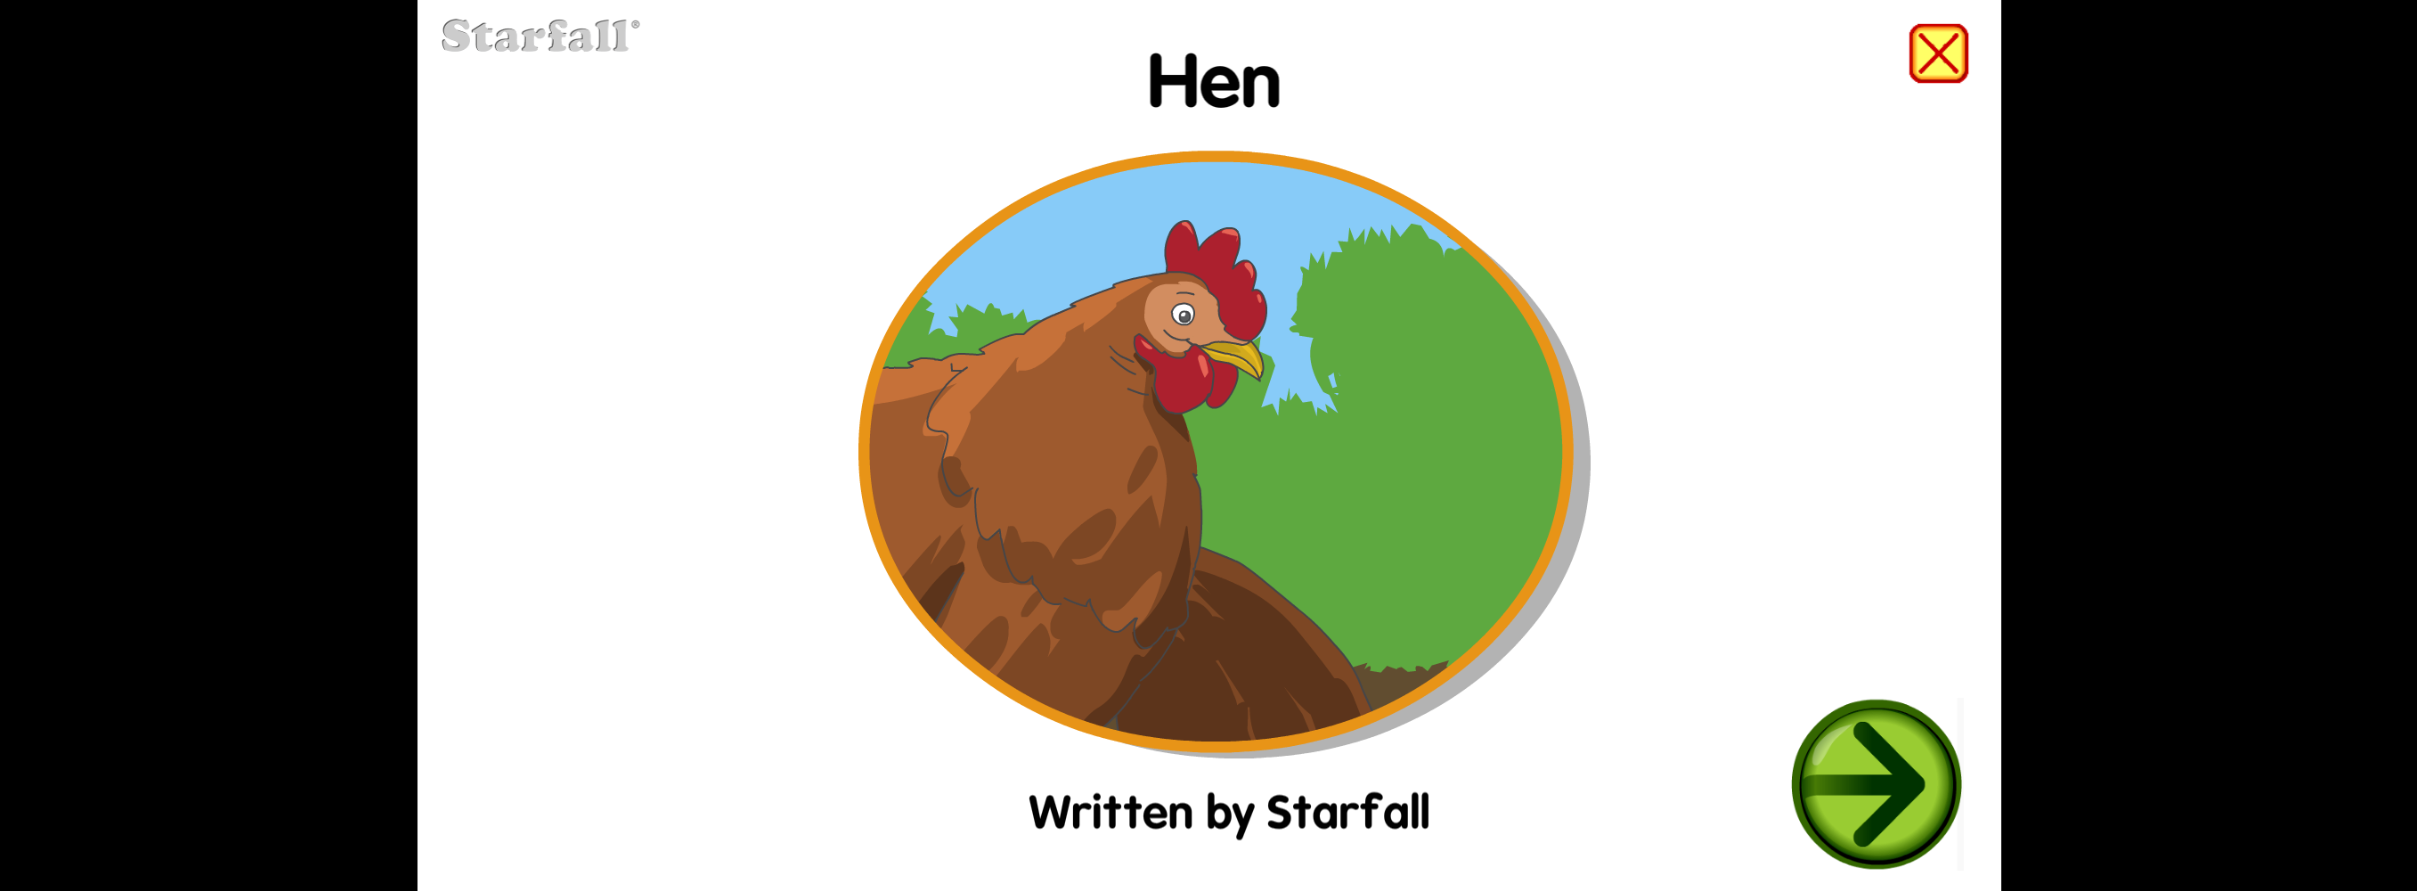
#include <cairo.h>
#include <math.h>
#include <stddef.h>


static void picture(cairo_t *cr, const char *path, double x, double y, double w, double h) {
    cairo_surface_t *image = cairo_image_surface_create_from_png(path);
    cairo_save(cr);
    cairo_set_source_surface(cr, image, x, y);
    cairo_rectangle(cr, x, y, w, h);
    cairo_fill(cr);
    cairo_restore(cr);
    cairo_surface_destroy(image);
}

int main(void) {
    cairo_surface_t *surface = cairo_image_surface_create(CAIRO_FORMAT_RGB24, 2417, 891);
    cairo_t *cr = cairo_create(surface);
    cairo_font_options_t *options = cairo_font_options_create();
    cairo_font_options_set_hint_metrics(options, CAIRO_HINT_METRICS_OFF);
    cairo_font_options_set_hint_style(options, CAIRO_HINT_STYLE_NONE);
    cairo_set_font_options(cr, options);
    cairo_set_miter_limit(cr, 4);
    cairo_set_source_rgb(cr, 0, 0, 0);
    cairo_paint(cr);
    picture(cr, "img1.png", 417, 0, 1585, 891);
    cairo_surface_write_to_png(surface, "page.png");
    cairo_font_options_destroy(options);
    cairo_destroy(cr);
    cairo_surface_destroy(surface);
    return 0;
}
